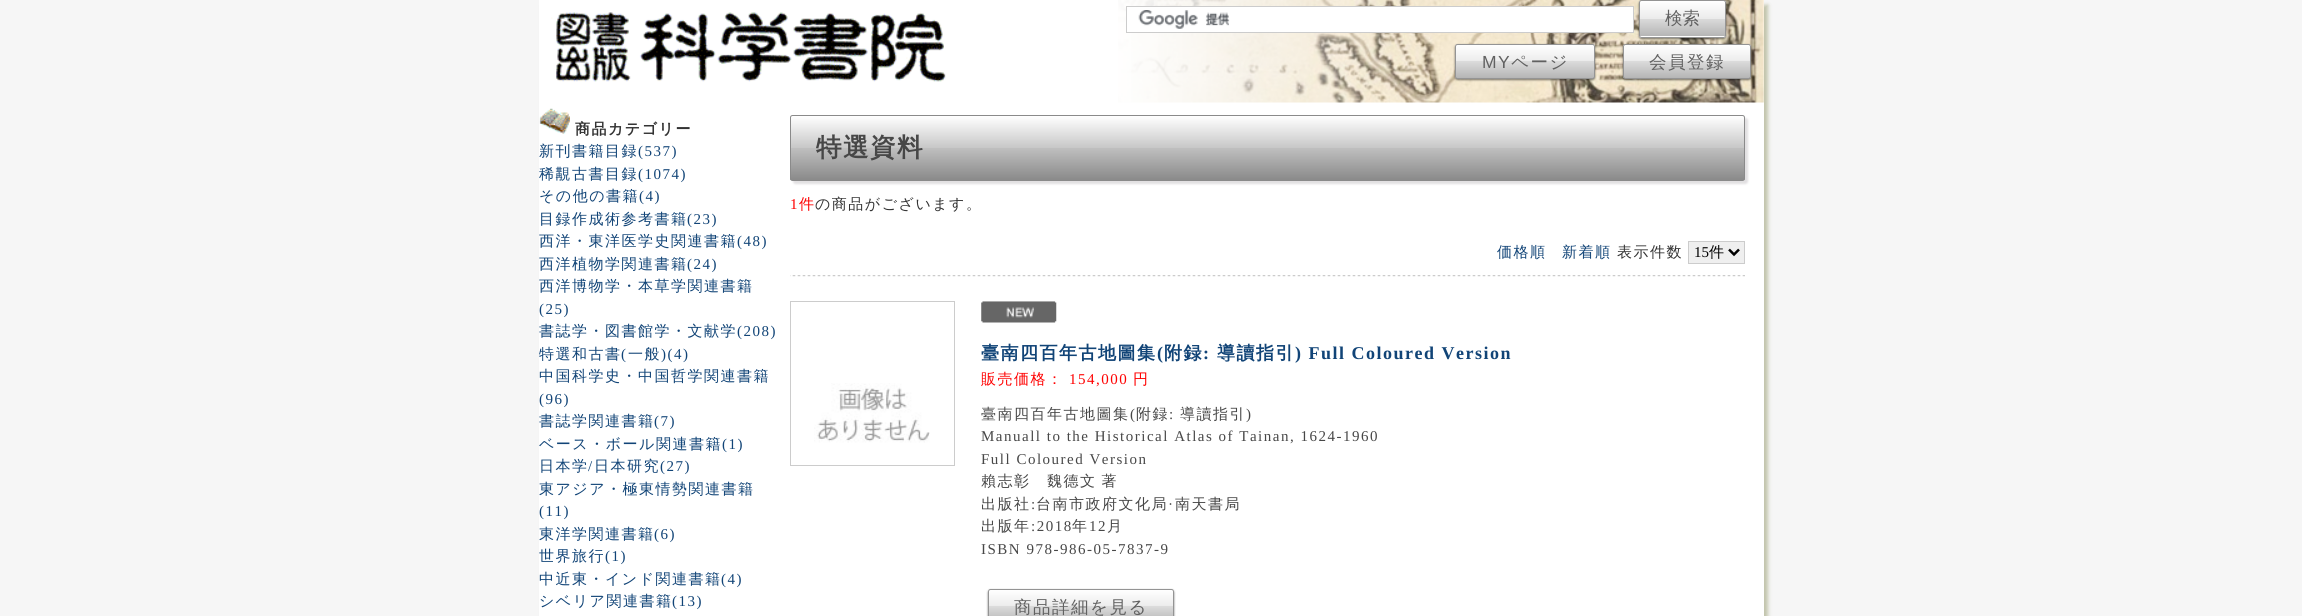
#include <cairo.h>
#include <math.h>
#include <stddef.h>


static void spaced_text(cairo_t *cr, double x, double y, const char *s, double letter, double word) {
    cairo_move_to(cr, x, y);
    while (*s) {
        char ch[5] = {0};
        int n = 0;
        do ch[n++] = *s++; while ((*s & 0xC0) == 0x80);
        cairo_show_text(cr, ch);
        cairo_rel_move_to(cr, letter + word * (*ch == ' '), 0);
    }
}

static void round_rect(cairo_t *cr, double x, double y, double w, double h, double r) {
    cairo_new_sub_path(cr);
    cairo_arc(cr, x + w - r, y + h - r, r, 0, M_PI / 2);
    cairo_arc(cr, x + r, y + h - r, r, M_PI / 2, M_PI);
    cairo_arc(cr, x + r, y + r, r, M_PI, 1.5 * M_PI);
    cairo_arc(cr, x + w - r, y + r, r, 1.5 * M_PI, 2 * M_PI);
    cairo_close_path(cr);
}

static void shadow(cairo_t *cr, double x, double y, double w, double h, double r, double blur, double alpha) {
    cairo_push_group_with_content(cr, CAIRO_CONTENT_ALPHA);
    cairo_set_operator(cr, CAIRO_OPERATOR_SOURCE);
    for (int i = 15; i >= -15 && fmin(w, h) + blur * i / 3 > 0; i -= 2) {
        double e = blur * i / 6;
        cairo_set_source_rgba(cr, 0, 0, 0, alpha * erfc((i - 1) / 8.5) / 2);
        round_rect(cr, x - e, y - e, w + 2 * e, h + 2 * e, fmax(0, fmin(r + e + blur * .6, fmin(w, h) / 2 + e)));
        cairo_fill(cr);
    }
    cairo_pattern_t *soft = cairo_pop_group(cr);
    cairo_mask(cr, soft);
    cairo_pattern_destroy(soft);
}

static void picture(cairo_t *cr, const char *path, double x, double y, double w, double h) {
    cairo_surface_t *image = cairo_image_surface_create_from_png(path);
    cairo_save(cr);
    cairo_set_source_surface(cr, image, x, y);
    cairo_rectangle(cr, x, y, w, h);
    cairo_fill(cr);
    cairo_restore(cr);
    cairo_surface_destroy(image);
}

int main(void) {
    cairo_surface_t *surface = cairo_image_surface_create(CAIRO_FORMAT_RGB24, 2302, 616);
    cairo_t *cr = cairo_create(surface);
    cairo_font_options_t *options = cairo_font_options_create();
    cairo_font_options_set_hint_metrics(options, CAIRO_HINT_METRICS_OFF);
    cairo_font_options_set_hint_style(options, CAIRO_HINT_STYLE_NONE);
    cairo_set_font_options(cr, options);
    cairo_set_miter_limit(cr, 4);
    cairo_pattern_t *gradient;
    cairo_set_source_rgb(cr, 0.961, 0.961, 0.961);
    cairo_paint(cr);
    cairo_set_source_rgb(cr, 0.71, 0.722, 0.604);
    shadow(cr, 543, 5, 1225, 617, 0, 2, 0.8);
    cairo_set_source_rgb(cr, 1, 1, 1);
    cairo_rectangle(cr, 539, 0, 1225, 616);
    cairo_fill(cr);
    picture(cr, "img1.png", 1118, 0, 646, 103);
    picture(cr, "img2.png", 551, 12, 395, 70);
    cairo_rectangle(cr, 1127, 7, 506, 25);
    cairo_fill(cr);
    picture(cr, "img3.png", 1138, 10, 92, 19);
    cairo_rectangle(cr, 1126.5, 6.5, 507, 26);
    cairo_set_source_rgb(cr, 0.8, 0.8, 0.8);
    cairo_set_line_width(cr, 1);
    cairo_stroke(cr);
    cairo_set_source_rgb(cr, 0, 0, 0);
    shadow(cr, 1639, 1, 87, 38, 2.5, 1, 0.5);
    gradient = cairo_pattern_create_linear(1640, 1.2, 1640, 36);
    cairo_pattern_add_color_stop_rgba(gradient, 0, 1, 1, 1, 1);
    cairo_pattern_add_color_stop_rgba(gradient, 0.5, 0.922, 0.922, 0.922, 1);
    cairo_pattern_add_color_stop_rgba(gradient, 0.5, 0.859, 0.859, 0.859, 1);
    cairo_pattern_add_color_stop_rgba(gradient, 1, 0.71, 0.71, 0.71, 1);
    cairo_set_source(cr, gradient);
    cairo_pattern_destroy(gradient);
    cairo_rectangle(cr, 1639, 1, 87, 35);
    cairo_fill(cr);
    cairo_save(cr);
    round_rect(cr, 1639, 0, 87, 38, 2.5);
    cairo_clip(cr);
    gradient = cairo_pattern_create_linear(1640, 36, 1640, 71);
    cairo_pattern_add_color_stop_rgba(gradient, 0, 1, 1, 1, 1);
    cairo_pattern_add_color_stop_rgba(gradient, 0.5, 0.922, 0.922, 0.922, 1);
    cairo_pattern_add_color_stop_rgba(gradient, 0.5, 0.859, 0.859, 0.859, 1);
    cairo_pattern_add_color_stop_rgba(gradient, 1, 0.71, 0.71, 0.71, 1);
    cairo_set_source(cr, gradient);
    cairo_pattern_destroy(gradient);
    cairo_rectangle(cr, 1639, 36, 87, 2);
    cairo_fill(cr);
    cairo_restore(cr);
    round_rect(cr, 1639.5, 0.5, 86, 37, 2);
    cairo_set_source_rgb(cr, 0.58, 0.58, 0.58);
    cairo_stroke(cr);
    cairo_select_font_face(cr, "WenQuanYi Zen Hei Medium", CAIRO_FONT_SLANT_NORMAL, CAIRO_FONT_WEIGHT_NORMAL);
    cairo_set_font_size(cr, 17.5);
    cairo_set_source_rgb(cr, 0.38, 0.38, 0.38);
    cairo_move_to(cr, 1665, 24);
    cairo_show_text(cr, "検索");
    cairo_set_source_rgb(cr, 0, 0, 0);
    shadow(cr, 1455, 45, 140, 35, 2.5, 1, 0.5);
    cairo_save(cr);
    round_rect(cr, 1455, 44, 140, 35, 2.5);
    cairo_clip(cr);
    gradient = cairo_pattern_create_linear(1456, 45, 1456, 78);
    cairo_pattern_add_color_stop_rgba(gradient, 0, 1, 1, 1, 1);
    cairo_pattern_add_color_stop_rgba(gradient, 0.5, 0.922, 0.922, 0.922, 1);
    cairo_pattern_add_color_stop_rgba(gradient, 0.5, 0.859, 0.859, 0.859, 1);
    cairo_pattern_add_color_stop_rgba(gradient, 1, 0.71, 0.71, 0.71, 1);
    cairo_set_source(cr, gradient);
    cairo_pattern_destroy(gradient);
    cairo_rectangle(cr, 1455, 45, 140, 33);
    cairo_fill(cr);
    cairo_restore(cr);
    round_rect(cr, 1455.5, 44.5, 139, 34, 2);
    cairo_set_source_rgb(cr, 0.58, 0.58, 0.58);
    cairo_stroke(cr);
    cairo_select_font_face(cr, "Liberation Sans", CAIRO_FONT_SLANT_NORMAL, CAIRO_FONT_WEIGHT_NORMAL);
    cairo_set_source_rgb(cr, 0.38, 0.38, 0.38);
    spaced_text(cr, 1482, 68, "MY", 1.5, 0);
    cairo_select_font_face(cr, "WenQuanYi Zen Hei Medium", CAIRO_FONT_SLANT_NORMAL, CAIRO_FONT_WEIGHT_NORMAL);
    spaced_text(cr, 1511, 68, "ページ", 1.5, 0);
    cairo_set_source_rgb(cr, 0, 0, 0);
    shadow(cr, 1623, 45, 128, 35, 2.5, 1, 0.5);
    cairo_save(cr);
    round_rect(cr, 1623, 44, 128, 35, 2.5);
    cairo_clip(cr);
    gradient = cairo_pattern_create_linear(1624, 45, 1624, 78);
    cairo_pattern_add_color_stop_rgba(gradient, 0, 1, 1, 1, 1);
    cairo_pattern_add_color_stop_rgba(gradient, 0.5, 0.922, 0.922, 0.922, 1);
    cairo_pattern_add_color_stop_rgba(gradient, 0.5, 0.859, 0.859, 0.859, 1);
    cairo_pattern_add_color_stop_rgba(gradient, 1, 0.71, 0.71, 0.71, 1);
    cairo_set_source(cr, gradient);
    cairo_pattern_destroy(gradient);
    cairo_rectangle(cr, 1623, 45, 128, 33);
    cairo_fill(cr);
    cairo_restore(cr);
    round_rect(cr, 1623.5, 44.5, 127, 34, 2);
    cairo_set_source_rgb(cr, 0.58, 0.58, 0.58);
    cairo_stroke(cr);
    cairo_set_source_rgb(cr, 0.38, 0.38, 0.38);
    spaced_text(cr, 1649, 68, "会員登録", 1.5, 0);
    picture(cr, "img4.png", 539, 108, 31, 26);
    cairo_select_font_face(cr, "WenQuanYi Zen Hei", CAIRO_FONT_SLANT_NORMAL, CAIRO_FONT_WEIGHT_BOLD);
    cairo_set_font_size(cr, 15);
    cairo_set_source_rgb(cr, 0.2, 0.2, 0.2);
    spaced_text(cr, 575, 134, "商品カテゴリー", 1.5, 0);
    cairo_select_font_face(cr, "WenQuanYi Zen Hei Medium", CAIRO_FONT_SLANT_NORMAL, CAIRO_FONT_WEIGHT_NORMAL);
    cairo_set_source_rgb(cr, 0.067, 0.267, 0.467);
    spaced_text(cr, 539, 156, "新刊書籍目録", 1.5, 0);
    cairo_select_font_face(cr, "Liberation Serif", CAIRO_FONT_SLANT_NORMAL, CAIRO_FONT_WEIGHT_NORMAL);
    spaced_text(cr, 638, 156, "(537)", 1.5, 0);
    cairo_select_font_face(cr, "WenQuanYi Zen Hei Medium", CAIRO_FONT_SLANT_NORMAL, CAIRO_FONT_WEIGHT_NORMAL);
    spaced_text(cr, 539, 179, "稀覯古書目録", 1.5, 0);
    cairo_select_font_face(cr, "Liberation Serif", CAIRO_FONT_SLANT_NORMAL, CAIRO_FONT_WEIGHT_NORMAL);
    spaced_text(cr, 638, 179, "(1074)", 1.5, 0);
    cairo_select_font_face(cr, "WenQuanYi Zen Hei Medium", CAIRO_FONT_SLANT_NORMAL, CAIRO_FONT_WEIGHT_NORMAL);
    spaced_text(cr, 539, 201, "その他の書籍", 1.5, 0);
    cairo_select_font_face(cr, "Liberation Serif", CAIRO_FONT_SLANT_NORMAL, CAIRO_FONT_WEIGHT_NORMAL);
    spaced_text(cr, 639, 201, "(4)", 1.5, 0);
    cairo_select_font_face(cr, "WenQuanYi Zen Hei Medium", CAIRO_FONT_SLANT_NORMAL, CAIRO_FONT_WEIGHT_NORMAL);
    spaced_text(cr, 539, 224, "目録作成術参考書籍", 1.5, 0);
    cairo_select_font_face(cr, "Liberation Serif", CAIRO_FONT_SLANT_NORMAL, CAIRO_FONT_WEIGHT_NORMAL);
    spaced_text(cr, 687, 224, "(23)", 1.5, 0);
    cairo_select_font_face(cr, "WenQuanYi Zen Hei Medium", CAIRO_FONT_SLANT_NORMAL, CAIRO_FONT_WEIGHT_NORMAL);
    spaced_text(cr, 539, 246, "西洋・東洋医学史関連書籍", 1.5, 0);
    cairo_select_font_face(cr, "Liberation Serif", CAIRO_FONT_SLANT_NORMAL, CAIRO_FONT_WEIGHT_NORMAL);
    spaced_text(cr, 737, 246, "(48)", 1.5, 0);
    cairo_select_font_face(cr, "WenQuanYi Zen Hei Medium", CAIRO_FONT_SLANT_NORMAL, CAIRO_FONT_WEIGHT_NORMAL);
    spaced_text(cr, 539, 269, "西洋植物学関連書籍", 1.5, 0);
    cairo_select_font_face(cr, "Liberation Serif", CAIRO_FONT_SLANT_NORMAL, CAIRO_FONT_WEIGHT_NORMAL);
    spaced_text(cr, 687, 269, "(24)", 1.5, 0);
    cairo_select_font_face(cr, "WenQuanYi Zen Hei Medium", CAIRO_FONT_SLANT_NORMAL, CAIRO_FONT_WEIGHT_NORMAL);
    spaced_text(cr, 539, 291, "西洋博物学・本草学関連書籍", 1.5, 0);
    cairo_select_font_face(cr, "Liberation Serif", CAIRO_FONT_SLANT_NORMAL, CAIRO_FONT_WEIGHT_NORMAL);
    spaced_text(cr, 539, 314, "(25)", 1.5, 0);
    cairo_select_font_face(cr, "WenQuanYi Zen Hei Medium", CAIRO_FONT_SLANT_NORMAL, CAIRO_FONT_WEIGHT_NORMAL);
    spaced_text(cr, 539, 336, "書誌学・図書館学・文献学", 1.5, 0);
    cairo_select_font_face(cr, "Liberation Serif", CAIRO_FONT_SLANT_NORMAL, CAIRO_FONT_WEIGHT_NORMAL);
    spaced_text(cr, 737, 336, "(208)", 1.5, 0);
    cairo_select_font_face(cr, "WenQuanYi Zen Hei Medium", CAIRO_FONT_SLANT_NORMAL, CAIRO_FONT_WEIGHT_NORMAL);
    spaced_text(cr, 539, 359, "特選和古書", 1.5, 0);
    cairo_select_font_face(cr, "Liberation Serif", CAIRO_FONT_SLANT_NORMAL, CAIRO_FONT_WEIGHT_NORMAL);
    spaced_text(cr, 621, 359, "(", 1.5, 0);
    cairo_select_font_face(cr, "WenQuanYi Zen Hei Medium", CAIRO_FONT_SLANT_NORMAL, CAIRO_FONT_WEIGHT_NORMAL);
    spaced_text(cr, 628, 359, "一般", 1.5, 0);
    cairo_select_font_face(cr, "Liberation Serif", CAIRO_FONT_SLANT_NORMAL, CAIRO_FONT_WEIGHT_NORMAL);
    spaced_text(cr, 661, 359, ")(4)", 1.5, 0);
    cairo_select_font_face(cr, "WenQuanYi Zen Hei Medium", CAIRO_FONT_SLANT_NORMAL, CAIRO_FONT_WEIGHT_NORMAL);
    spaced_text(cr, 539, 381, "中国科学史・中国哲学関連書籍", 1.5, 0);
    cairo_select_font_face(cr, "Liberation Serif", CAIRO_FONT_SLANT_NORMAL, CAIRO_FONT_WEIGHT_NORMAL);
    spaced_text(cr, 539, 404, "(96)", 1.5, 0);
    cairo_select_font_face(cr, "WenQuanYi Zen Hei Medium", CAIRO_FONT_SLANT_NORMAL, CAIRO_FONT_WEIGHT_NORMAL);
    spaced_text(cr, 539, 426, "書誌学関連書籍", 1.5, 0);
    cairo_select_font_face(cr, "Liberation Serif", CAIRO_FONT_SLANT_NORMAL, CAIRO_FONT_WEIGHT_NORMAL);
    spaced_text(cr, 654, 426, "(7)", 1.5, 0);
    cairo_select_font_face(cr, "WenQuanYi Zen Hei Medium", CAIRO_FONT_SLANT_NORMAL, CAIRO_FONT_WEIGHT_NORMAL);
    spaced_text(cr, 539, 449, "ベース・ボール関連書籍", 1.5, 0);
    cairo_select_font_face(cr, "Liberation Serif", CAIRO_FONT_SLANT_NORMAL, CAIRO_FONT_WEIGHT_NORMAL);
    spaced_text(cr, 722, 449, "(1)", 1.5, 0);
    cairo_select_font_face(cr, "WenQuanYi Zen Hei Medium", CAIRO_FONT_SLANT_NORMAL, CAIRO_FONT_WEIGHT_NORMAL);
    spaced_text(cr, 539, 471, "日本学", 1.5, 0);
    cairo_select_font_face(cr, "Liberation Serif", CAIRO_FONT_SLANT_NORMAL, CAIRO_FONT_WEIGHT_NORMAL);
    spaced_text(cr, 588, 471, "/", 1.5, 0);
    cairo_select_font_face(cr, "WenQuanYi Zen Hei Medium", CAIRO_FONT_SLANT_NORMAL, CAIRO_FONT_WEIGHT_NORMAL);
    spaced_text(cr, 594, 471, "日本研究", 1.5, 0);
    cairo_select_font_face(cr, "Liberation Serif", CAIRO_FONT_SLANT_NORMAL, CAIRO_FONT_WEIGHT_NORMAL);
    spaced_text(cr, 660, 471, "(27)", 1.5, 0);
    cairo_select_font_face(cr, "WenQuanYi Zen Hei Medium", CAIRO_FONT_SLANT_NORMAL, CAIRO_FONT_WEIGHT_NORMAL);
    spaced_text(cr, 539, 494, "東アジア・極東情勢関連書籍", 1.5, 0);
    cairo_select_font_face(cr, "Liberation Serif", CAIRO_FONT_SLANT_NORMAL, CAIRO_FONT_WEIGHT_NORMAL);
    spaced_text(cr, 539, 516, "(11)", 1.5, 0);
    cairo_select_font_face(cr, "WenQuanYi Zen Hei Medium", CAIRO_FONT_SLANT_NORMAL, CAIRO_FONT_WEIGHT_NORMAL);
    spaced_text(cr, 539, 539, "東洋学関連書籍", 1.5, 0);
    cairo_select_font_face(cr, "Liberation Serif", CAIRO_FONT_SLANT_NORMAL, CAIRO_FONT_WEIGHT_NORMAL);
    spaced_text(cr, 654, 539, "(6)", 1.5, 0);
    cairo_select_font_face(cr, "WenQuanYi Zen Hei Medium", CAIRO_FONT_SLANT_NORMAL, CAIRO_FONT_WEIGHT_NORMAL);
    spaced_text(cr, 539, 561, "世界旅行", 1.5, 0);
    cairo_select_font_face(cr, "Liberation Serif", CAIRO_FONT_SLANT_NORMAL, CAIRO_FONT_WEIGHT_NORMAL);
    spaced_text(cr, 605, 561, "(1)", 1.5, 0);
    cairo_select_font_face(cr, "WenQuanYi Zen Hei Medium", CAIRO_FONT_SLANT_NORMAL, CAIRO_FONT_WEIGHT_NORMAL);
    spaced_text(cr, 539, 584, "中近東・インド関連書籍", 1.5, 0);
    cairo_select_font_face(cr, "Liberation Serif", CAIRO_FONT_SLANT_NORMAL, CAIRO_FONT_WEIGHT_NORMAL);
    spaced_text(cr, 721, 584, "(4)", 1.5, 0);
    cairo_select_font_face(cr, "WenQuanYi Zen Hei Medium", CAIRO_FONT_SLANT_NORMAL, CAIRO_FONT_WEIGHT_NORMAL);
    spaced_text(cr, 539, 606, "シベリア関連書籍", 1.5, 0);
    cairo_select_font_face(cr, "Liberation Serif", CAIRO_FONT_SLANT_NORMAL, CAIRO_FONT_WEIGHT_NORMAL);
    spaced_text(cr, 672, 606, "(13)", 1.5, 0);
    cairo_set_source_rgb(cr, 0.769, 0.753, 0.769);
    shadow(cr, 793, 118, 955, 66, 2.5, 1, 0.5);
    cairo_save(cr);
    round_rect(cr, 790, 115, 955, 66, 2.5);
    cairo_clip(cr);
    gradient = cairo_pattern_create_linear(791, 116, 791, 180);
    cairo_pattern_add_color_stop_rgba(gradient, 0, 1, 1, 1, 1);
    cairo_pattern_add_color_stop_rgba(gradient, 0.5, 0.78, 0.78, 0.78, 1);
    cairo_pattern_add_color_stop_rgba(gradient, 0.5, 0.749, 0.749, 0.749, 1);
    cairo_pattern_add_color_stop_rgba(gradient, 1, 0.541, 0.541, 0.541, 1);
    cairo_set_source(cr, gradient);
    cairo_pattern_destroy(gradient);
    cairo_rectangle(cr, 790, 116, 955, 64);
    cairo_fill(cr);
    cairo_restore(cr);
    round_rect(cr, 790.5, 115.5, 954, 65, 2);
    cairo_set_source_rgb(cr, 0.541, 0.541, 0.541);
    cairo_stroke(cr);
    cairo_select_font_face(cr, "WenQuanYi Zen Hei", CAIRO_FONT_SLANT_NORMAL, CAIRO_FONT_WEIGHT_BOLD);
    cairo_set_font_size(cr, 25.5);
    cairo_set_source_rgb(cr, 0.278, 0.278, 0.278);
    spaced_text(cr, 816, 156, "特選資料", 1.5, 0);
    cairo_select_font_face(cr, "Liberation Serif", CAIRO_FONT_SLANT_NORMAL, CAIRO_FONT_WEIGHT_NORMAL);
    cairo_set_font_size(cr, 15);
    cairo_set_source_rgb(cr, 1, 0, 0);
    spaced_text(cr, 790, 209, "1", 1.5, 0);
    cairo_select_font_face(cr, "WenQuanYi Zen Hei Medium", CAIRO_FONT_SLANT_NORMAL, CAIRO_FONT_WEIGHT_NORMAL);
    spaced_text(cr, 799, 209, "件", 1.5, 0);
    cairo_set_source_rgb(cr, 0.2, 0.2, 0.2);
    spaced_text(cr, 815, 209, "の商品がございます。", 1.5, 0);
    picture(cr, "img5.png", 790, 275, 955, 2);
    cairo_set_source_rgb(cr, 0.067, 0.267, 0.467);
    spaced_text(cr, 1497, 257, "価格順", 1.5, 0);
    spaced_text(cr, 1562, 257, "新着順", 1.5, 0);
    cairo_set_source_rgb(cr, 0.2, 0.2, 0.2);
    spaced_text(cr, 1617, 257, "表示件数", 1.5, 0);
    cairo_set_source_rgb(cr, 0.937, 0.937, 0.937);
    cairo_rectangle(cr, 1688.5, 241.5, 56, 22);
    cairo_fill_preserve(cr);
    cairo_set_source_rgb(cr, 0.8, 0.8, 0.8);
    cairo_stroke(cr);
    cairo_new_path(cr);
    cairo_move_to(cr, 1729, 249.5);
    cairo_line_to(cr, 1734, 254.5);
    cairo_line_to(cr, 1739, 249.5);
    cairo_set_source_rgb(cr, 0, 0, 0);
    cairo_set_line_width(cr, 2.5);
    cairo_stroke(cr);
    cairo_select_font_face(cr, "Liberation Serif", CAIRO_FONT_SLANT_NORMAL, CAIRO_FONT_WEIGHT_NORMAL);
    cairo_move_to(cr, 1694, 257);
    cairo_show_text(cr, "15");
    cairo_select_font_face(cr, "WenQuanYi Zen Hei Medium", CAIRO_FONT_SLANT_NORMAL, CAIRO_FONT_WEIGHT_NORMAL);
    cairo_move_to(cr, 1709, 257);
    cairo_show_text(cr, "件");
    cairo_rectangle(cr, 790.5, 301.5, 164, 164);
    cairo_set_source_rgb(cr, 0.8, 0.8, 0.8);
    cairo_set_line_width(cr, 1);
    cairo_stroke(cr);
    picture(cr, "img6.png", 814, 383, 116, 60);
    picture(cr, "img7.png", 981, 301, 76, 22);
    cairo_select_font_face(cr, "WenQuanYi Zen Hei", CAIRO_FONT_SLANT_NORMAL, CAIRO_FONT_WEIGHT_BOLD);
    cairo_set_font_size(cr, 18);
    cairo_set_source_rgb(cr, 0.067, 0.267, 0.467);
    spaced_text(cr, 981, 359, "臺南四百年古地圖集", 1.5, 0);
    cairo_select_font_face(cr, "Liberation Serif", CAIRO_FONT_SLANT_NORMAL, CAIRO_FONT_WEIGHT_BOLD);
    spaced_text(cr, 1157, 359, "(", 1.5, 0);
    cairo_select_font_face(cr, "WenQuanYi Zen Hei", CAIRO_FONT_SLANT_NORMAL, CAIRO_FONT_WEIGHT_BOLD);
    spaced_text(cr, 1164, 359, "附録", 1.5, 0);
    cairo_select_font_face(cr, "Liberation Serif", CAIRO_FONT_SLANT_NORMAL, CAIRO_FONT_WEIGHT_BOLD);
    spaced_text(cr, 1203, 359, ":", 1.5, 0);
    cairo_select_font_face(cr, "WenQuanYi Zen Hei", CAIRO_FONT_SLANT_NORMAL, CAIRO_FONT_WEIGHT_BOLD);
    spaced_text(cr, 1217, 359, "導讀指引", 1.5, 0);
    cairo_select_font_face(cr, "Liberation Serif", CAIRO_FONT_SLANT_NORMAL, CAIRO_FONT_WEIGHT_BOLD);
    spaced_text(cr, 1295, 359, ") Full Coloured Version", 1.5, 0);
    cairo_select_font_face(cr, "WenQuanYi Zen Hei Medium", CAIRO_FONT_SLANT_NORMAL, CAIRO_FONT_WEIGHT_NORMAL);
    cairo_set_font_size(cr, 15);
    cairo_set_source_rgb(cr, 1, 0, 0);
    spaced_text(cr, 981, 384, "販売価格：", 1.5, 0);
    cairo_select_font_face(cr, "Liberation Serif", CAIRO_FONT_SLANT_NORMAL, CAIRO_FONT_WEIGHT_NORMAL);
    spaced_text(cr, 1069, 384, "154,000", 1.5, 0);
    cairo_select_font_face(cr, "WenQuanYi Zen Hei Medium", CAIRO_FONT_SLANT_NORMAL, CAIRO_FONT_WEIGHT_NORMAL);
    spaced_text(cr, 1133, 384, "円", 1.5, 0);
    cairo_set_source_rgb(cr, 0.278, 0.278, 0.278);
    spaced_text(cr, 981, 419, "臺南四百年古地圖集", 1.5, 0);
    cairo_select_font_face(cr, "Liberation Serif", CAIRO_FONT_SLANT_NORMAL, CAIRO_FONT_WEIGHT_NORMAL);
    spaced_text(cr, 1130, 419, "(", 1.5, 0);
    cairo_select_font_face(cr, "WenQuanYi Zen Hei Medium", CAIRO_FONT_SLANT_NORMAL, CAIRO_FONT_WEIGHT_NORMAL);
    spaced_text(cr, 1136, 419, "附録", 1.5, 0);
    cairo_select_font_face(cr, "Liberation Serif", CAIRO_FONT_SLANT_NORMAL, CAIRO_FONT_WEIGHT_NORMAL);
    spaced_text(cr, 1169, 419, ":", 1.5, 0);
    cairo_select_font_face(cr, "WenQuanYi Zen Hei Medium", CAIRO_FONT_SLANT_NORMAL, CAIRO_FONT_WEIGHT_NORMAL);
    spaced_text(cr, 1180, 419, "導讀指引", 1.5, 0);
    cairo_select_font_face(cr, "Liberation Serif", CAIRO_FONT_SLANT_NORMAL, CAIRO_FONT_WEIGHT_NORMAL);
    spaced_text(cr, 1246, 419, ")", 1.5, 0);
    spaced_text(cr, 981, 441, "Manuall to the Historical Atlas of Tainan, 1624-1960", 1.5, 0);
    spaced_text(cr, 981, 464, "Full Coloured Version", 1.5, 0);
    cairo_select_font_face(cr, "WenQuanYi Zen Hei Medium", CAIRO_FONT_SLANT_NORMAL, CAIRO_FONT_WEIGHT_NORMAL);
    spaced_text(cr, 981, 486, "賴志彰　魏德文 著", 1.5, -1);
    spaced_text(cr, 981, 509, "出版社", 1.5, 0);
    cairo_select_font_face(cr, "Liberation Serif", CAIRO_FONT_SLANT_NORMAL, CAIRO_FONT_WEIGHT_NORMAL);
    spaced_text(cr, 1031, 509, ":", 1.5, 0);
    cairo_select_font_face(cr, "WenQuanYi Zen Hei Medium", CAIRO_FONT_SLANT_NORMAL, CAIRO_FONT_WEIGHT_NORMAL);
    spaced_text(cr, 1036, 509, "台南市政府文化局", 1.5, 0);
    cairo_select_font_face(cr, "Liberation Serif", CAIRO_FONT_SLANT_NORMAL, CAIRO_FONT_WEIGHT_NORMAL);
    spaced_text(cr, 1168, 509, "·", 1.5, 0);
    cairo_select_font_face(cr, "WenQuanYi Zen Hei Medium", CAIRO_FONT_SLANT_NORMAL, CAIRO_FONT_WEIGHT_NORMAL);
    spaced_text(cr, 1175, 509, "南天書局", 1.5, 0);
    spaced_text(cr, 981, 531, "出版年", 1.5, 0);
    cairo_select_font_face(cr, "Liberation Serif", CAIRO_FONT_SLANT_NORMAL, CAIRO_FONT_WEIGHT_NORMAL);
    spaced_text(cr, 1031, 531, ":2018", 1.5, 0);
    cairo_select_font_face(cr, "WenQuanYi Zen Hei Medium", CAIRO_FONT_SLANT_NORMAL, CAIRO_FONT_WEIGHT_NORMAL);
    spaced_text(cr, 1072, 531, "年", 1.5, 0);
    cairo_select_font_face(cr, "Liberation Serif", CAIRO_FONT_SLANT_NORMAL, CAIRO_FONT_WEIGHT_NORMAL);
    spaced_text(cr, 1089, 531, "12", 1.5, 0);
    cairo_select_font_face(cr, "WenQuanYi Zen Hei Medium", CAIRO_FONT_SLANT_NORMAL, CAIRO_FONT_WEIGHT_NORMAL);
    spaced_text(cr, 1107, 531, "月", 1.5, 0);
    cairo_select_font_face(cr, "Liberation Serif", CAIRO_FONT_SLANT_NORMAL, CAIRO_FONT_WEIGHT_NORMAL);
    spaced_text(cr, 981, 554, "ISBN 978-986-05-7837-9", 1.5, 0);
    cairo_set_source_rgb(cr, 0, 0, 0);
    shadow(cr, 988, 590, 186, 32, 2.5, 1, 0.5);
    gradient = cairo_pattern_create_linear(989, 590, 989, 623);
    cairo_pattern_add_color_stop_rgba(gradient, 0, 1, 1, 1, 1);
    cairo_pattern_add_color_stop_rgba(gradient, 0.5, 0.922, 0.922, 0.922, 1);
    cairo_pattern_add_color_stop_rgba(gradient, 0.5, 0.859, 0.859, 0.859, 1);
    cairo_pattern_add_color_stop_rgba(gradient, 1, 0.71, 0.71, 0.71, 1);
    cairo_set_source(cr, gradient);
    cairo_pattern_destroy(gradient);
    cairo_rectangle(cr, 988, 590, 186, 26);
    cairo_fill(cr);
    round_rect(cr, 988.5, 589.5, 185, 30, 2);
    cairo_set_source_rgb(cr, 0.58, 0.58, 0.58);
    cairo_stroke(cr);
    cairo_select_font_face(cr, "WenQuanYi Zen Hei Medium", CAIRO_FONT_SLANT_NORMAL, CAIRO_FONT_WEIGHT_NORMAL);
    cairo_set_font_size(cr, 17.5);
    cairo_set_source_rgb(cr, 0.38, 0.38, 0.38);
    spaced_text(cr, 1014, 613, "商品詳細を見る", 1.5, 0);
    cairo_surface_write_to_png(surface, "page.png");
    cairo_font_options_destroy(options);
    cairo_destroy(cr);
    cairo_surface_destroy(surface);
    return 0;
}
